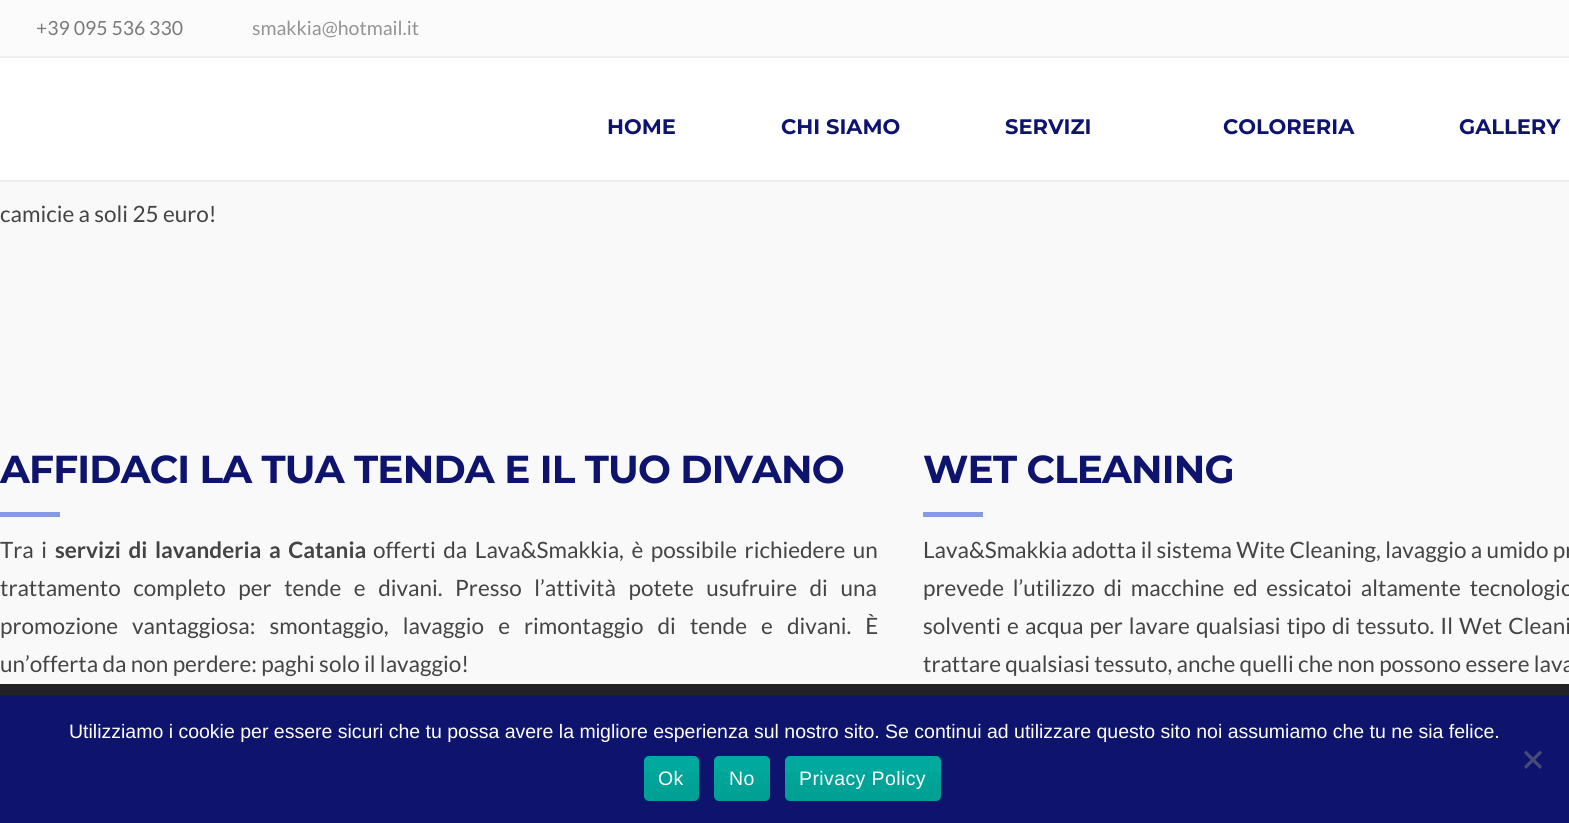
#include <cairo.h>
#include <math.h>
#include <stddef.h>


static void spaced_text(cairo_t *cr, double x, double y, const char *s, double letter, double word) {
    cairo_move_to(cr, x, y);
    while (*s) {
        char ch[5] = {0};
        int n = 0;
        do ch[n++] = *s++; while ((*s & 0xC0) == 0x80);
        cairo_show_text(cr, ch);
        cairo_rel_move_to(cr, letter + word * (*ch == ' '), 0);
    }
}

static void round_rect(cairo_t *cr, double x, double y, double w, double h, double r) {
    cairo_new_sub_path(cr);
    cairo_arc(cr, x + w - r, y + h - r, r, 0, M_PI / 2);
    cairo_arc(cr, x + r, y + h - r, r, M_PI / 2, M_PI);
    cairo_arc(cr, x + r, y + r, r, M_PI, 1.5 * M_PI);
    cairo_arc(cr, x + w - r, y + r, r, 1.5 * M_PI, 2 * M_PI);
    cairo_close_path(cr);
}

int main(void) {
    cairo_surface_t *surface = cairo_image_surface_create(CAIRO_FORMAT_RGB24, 1569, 823);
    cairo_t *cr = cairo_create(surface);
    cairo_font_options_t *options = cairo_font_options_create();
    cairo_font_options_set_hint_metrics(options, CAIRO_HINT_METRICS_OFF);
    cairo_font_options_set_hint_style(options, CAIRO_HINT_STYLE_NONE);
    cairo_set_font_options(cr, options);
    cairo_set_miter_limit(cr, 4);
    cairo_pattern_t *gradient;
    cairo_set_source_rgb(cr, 0.133, 0.133, 0.133);
    cairo_paint(cr);
    cairo_set_source_rgb(cr, 0.976, 0.976, 0.976);
    cairo_rectangle(cr, 0, 180, 1569, 504);
    cairo_fill(cr);
    cairo_rectangle(cr, 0, 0, 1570, 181);
    cairo_set_source_rgba(cr, 0, 0, 0, 0.05);
    cairo_stroke(cr);
    cairo_set_source_rgb(cr, 1, 1, 1);
    cairo_rectangle(cr, 0, 58, 1569, 122);
    cairo_fill(cr);
    cairo_set_source_rgb(cr, 0.984, 0.984, 0.984);
    cairo_rectangle(cr, 0, 0, 1569, 56);
    cairo_fill(cr);
    cairo_set_source_rgb(cr, 0.933, 0.933, 0.933);
    cairo_rectangle(cr, 0, 56, 1569, 2);
    cairo_fill(cr);
    cairo_select_font_face(cr, "Lato", CAIRO_FONT_SLANT_NORMAL, CAIRO_FONT_WEIGHT_NORMAL);
    cairo_set_font_size(cr, 19.5);
    cairo_set_source_rgb(cr, 0.482, 0.482, 0.482);
    cairo_move_to(cr, 36, 35);
    cairo_show_text(cr, "+39 095 536 330");
    cairo_set_source_rgb(cr, 0.576, 0.576, 0.576);
    cairo_move_to(cr, 252, 35);
    cairo_show_text(cr, "smakkia@hotmail.it");
    cairo_select_font_face(cr, "Montserrat", CAIRO_FONT_SLANT_NORMAL, CAIRO_FONT_WEIGHT_BOLD);
    cairo_set_font_size(cr, 21);
    cairo_set_source_rgb(cr, 0.055, 0.082, 0.427);
    cairo_move_to(cr, 607, 134);
    cairo_show_text(cr, "HOME");
    cairo_move_to(cr, 781, 134);
    cairo_show_text(cr, "CHI SIAMO");
    cairo_move_to(cr, 1005, 134);
    cairo_show_text(cr, "SERVIZI");
    cairo_move_to(cr, 1223, 134);
    cairo_show_text(cr, "COLORERIA");
    cairo_move_to(cr, 1459, 134);
    cairo_show_text(cr, "GALLERY");
    cairo_select_font_face(cr, "Lato", CAIRO_FONT_SLANT_NORMAL, CAIRO_FONT_WEIGHT_NORMAL);
    cairo_set_font_size(cr, 22.5);
    cairo_set_source_rgb(cr, 0.267, 0.267, 0.267);
    cairo_move_to(cr, 0, 222);
    cairo_show_text(cr, "camicie a soli 25 euro!");
    cairo_select_font_face(cr, "Montserrat", CAIRO_FONT_SLANT_NORMAL, CAIRO_FONT_WEIGHT_BOLD);
    cairo_set_font_size(cr, 39);
    cairo_set_source_rgb(cr, 0.055, 0.082, 0.427);
    spaced_text(cr, 0, 483, "AFFIDACI LA TUA TENDA E IL TUO DIVANO", -0.8, 0);
    cairo_set_source_rgb(cr, 0.525, 0.608, 0.875);
    cairo_rectangle(cr, 0, 512, 60, 5);
    cairo_fill(cr);
    cairo_select_font_face(cr, "Lato", CAIRO_FONT_SLANT_NORMAL, CAIRO_FONT_WEIGHT_NORMAL);
    cairo_set_font_size(cr, 22.5);
    cairo_set_source_rgb(cr, 0.267, 0.267, 0.267);
    spaced_text(cr, 0, 558, "Tra i", 0, 3.25);
    cairo_select_font_face(cr, "Lato", CAIRO_FONT_SLANT_NORMAL, CAIRO_FONT_WEIGHT_BOLD);
    spaced_text(cr, 55, 558, "servizi di lavanderia a Catania", 0, 3.25);
    cairo_select_font_face(cr, "Lato", CAIRO_FONT_SLANT_NORMAL, CAIRO_FONT_WEIGHT_NORMAL);
    spaced_text(cr, 373, 558, "offerti da Lava&Smakkia, è possibile richiedere un", 0, 3.25);
    spaced_text(cr, 0, 596, "trattamento completo per tende e divani. Presso l’attività potete usufruire di una", 0, 8.25);
    spaced_text(cr, 0, 634, "promozione vantaggiosa: smontaggio, lavaggio e rimontaggio di tende e divani. È", 0, 9.75);
    cairo_move_to(cr, 0, 672);
    cairo_show_text(cr, "un’offerta da non perdere: paghi solo il lavaggio!");
    cairo_select_font_face(cr, "Montserrat", CAIRO_FONT_SLANT_NORMAL, CAIRO_FONT_WEIGHT_BOLD);
    cairo_set_font_size(cr, 39);
    cairo_set_source_rgb(cr, 0.055, 0.082, 0.427);
    spaced_text(cr, 923, 483, "WET CLEANING", -0.8, 0);
    cairo_set_source_rgb(cr, 0.525, 0.608, 0.875);
    cairo_rectangle(cr, 923, 512, 60, 5);
    cairo_fill(cr);
    cairo_select_font_face(cr, "Lato", CAIRO_FONT_SLANT_NORMAL, CAIRO_FONT_WEIGHT_NORMAL);
    cairo_set_font_size(cr, 22.5);
    cairo_set_source_rgb(cr, 0.267, 0.267, 0.267);
    cairo_move_to(cr, 923, 558);
    cairo_show_text(cr, "Lava&Smakkia adotta il sistema Wite Cleaning, lavaggio a umido pr");
    spaced_text(cr, 923, 596, "prevede l’utilizzo di macchine ed essicatoi altamente tecnologic", 0, 4.5);
    spaced_text(cr, 923, 634, "solventi e acqua per lavare qualsiasi tipo di tessuto. Il Wet Cleani", 0, 1.75);
    cairo_move_to(cr, 923, 672);
    cairo_show_text(cr, "trattare qualsiasi tessuto, anche quelli che non possono essere lava");
    cairo_set_source_rgb(cr, 0.055, 0.082, 0.427);
    cairo_rectangle(cr, 0, 695, 1569, 128);
    cairo_fill(cr);
    cairo_select_font_face(cr, "Liberation Sans", CAIRO_FONT_SLANT_NORMAL, CAIRO_FONT_WEIGHT_NORMAL);
    cairo_set_font_size(cr, 19.5);
    cairo_set_source_rgb(cr, 1, 1, 1);
    cairo_move_to(cr, 69, 738);
    cairo_show_text(cr, "Utilizziamo i cookie per essere sicuri che tu possa avere la migliore esperienza sul nostro sito. Se continui ad utilizzare questo sito noi assumiamo che tu ne sia felice.");
    cairo_set_source_rgb(cr, 0.278, 0.294, 0.467);
    cairo_new_path(cr);
    cairo_move_to(cr, 1540, 750.5);
    cairo_line_to(cr, 1542, 753);
    cairo_line_to(cr, 1526, 769);
    cairo_line_to(cr, 1524, 766.5);
    cairo_close_path(cr);
    cairo_fill(cr);
    cairo_new_path(cr);
    cairo_move_to(cr, 1524, 753);
    cairo_line_to(cr, 1526, 750.5);
    cairo_line_to(cr, 1542, 766.5);
    cairo_line_to(cr, 1540, 769);
    cairo_close_path(cr);
    cairo_fill(cr);
    cairo_set_source_rgb(cr, 0, 0.663, 0.616);
    round_rect(cr, 644, 756, 55, 45, 5);
    cairo_fill(cr);
    gradient = cairo_pattern_create_linear(671, 756, 671, 801);
    cairo_pattern_add_color_stop_rgba(gradient, 0, 0, 0, 0, 0);
    cairo_pattern_add_color_stop_rgba(gradient, 1, 0, 0, 0, 0.06);
    cairo_set_source(cr, gradient);
    cairo_pattern_destroy(gradient);
    cairo_rectangle(cr, 644, 772, 55, 29);
    cairo_fill(cr);
    cairo_set_source_rgb(cr, 1, 1, 1);
    spaced_text(cr, 658, 785, "Ok", 0.4, 0);
    cairo_set_source_rgb(cr, 0, 0.663, 0.616);
    round_rect(cr, 714, 756, 56, 45, 5);
    cairo_fill(cr);
    gradient = cairo_pattern_create_linear(742, 756, 742, 801);
    cairo_pattern_add_color_stop_rgba(gradient, 0, 0, 0, 0, 0);
    cairo_pattern_add_color_stop_rgba(gradient, 1, 0, 0, 0, 0.06);
    cairo_set_source(cr, gradient);
    cairo_pattern_destroy(gradient);
    cairo_rectangle(cr, 714, 772, 56, 29);
    cairo_fill(cr);
    cairo_set_source_rgb(cr, 1, 1, 1);
    spaced_text(cr, 729, 785, "No", 0.4, 0);
    cairo_set_source_rgb(cr, 0, 0.663, 0.616);
    round_rect(cr, 785, 756, 156, 45, 5);
    cairo_fill(cr);
    gradient = cairo_pattern_create_linear(863, 756, 863, 801);
    cairo_pattern_add_color_stop_rgba(gradient, 0, 0, 0, 0, 0);
    cairo_pattern_add_color_stop_rgba(gradient, 1, 0, 0, 0, 0.06);
    cairo_set_source(cr, gradient);
    cairo_pattern_destroy(gradient);
    cairo_rectangle(cr, 785, 772, 156, 29);
    cairo_fill(cr);
    cairo_set_source_rgb(cr, 1, 1, 1);
    spaced_text(cr, 799, 785, "Privacy Policy", 0.4, 0);
    cairo_surface_write_to_png(surface, "page.png");
    cairo_font_options_destroy(options);
    cairo_destroy(cr);
    cairo_surface_destroy(surface);
    return 0;
}
